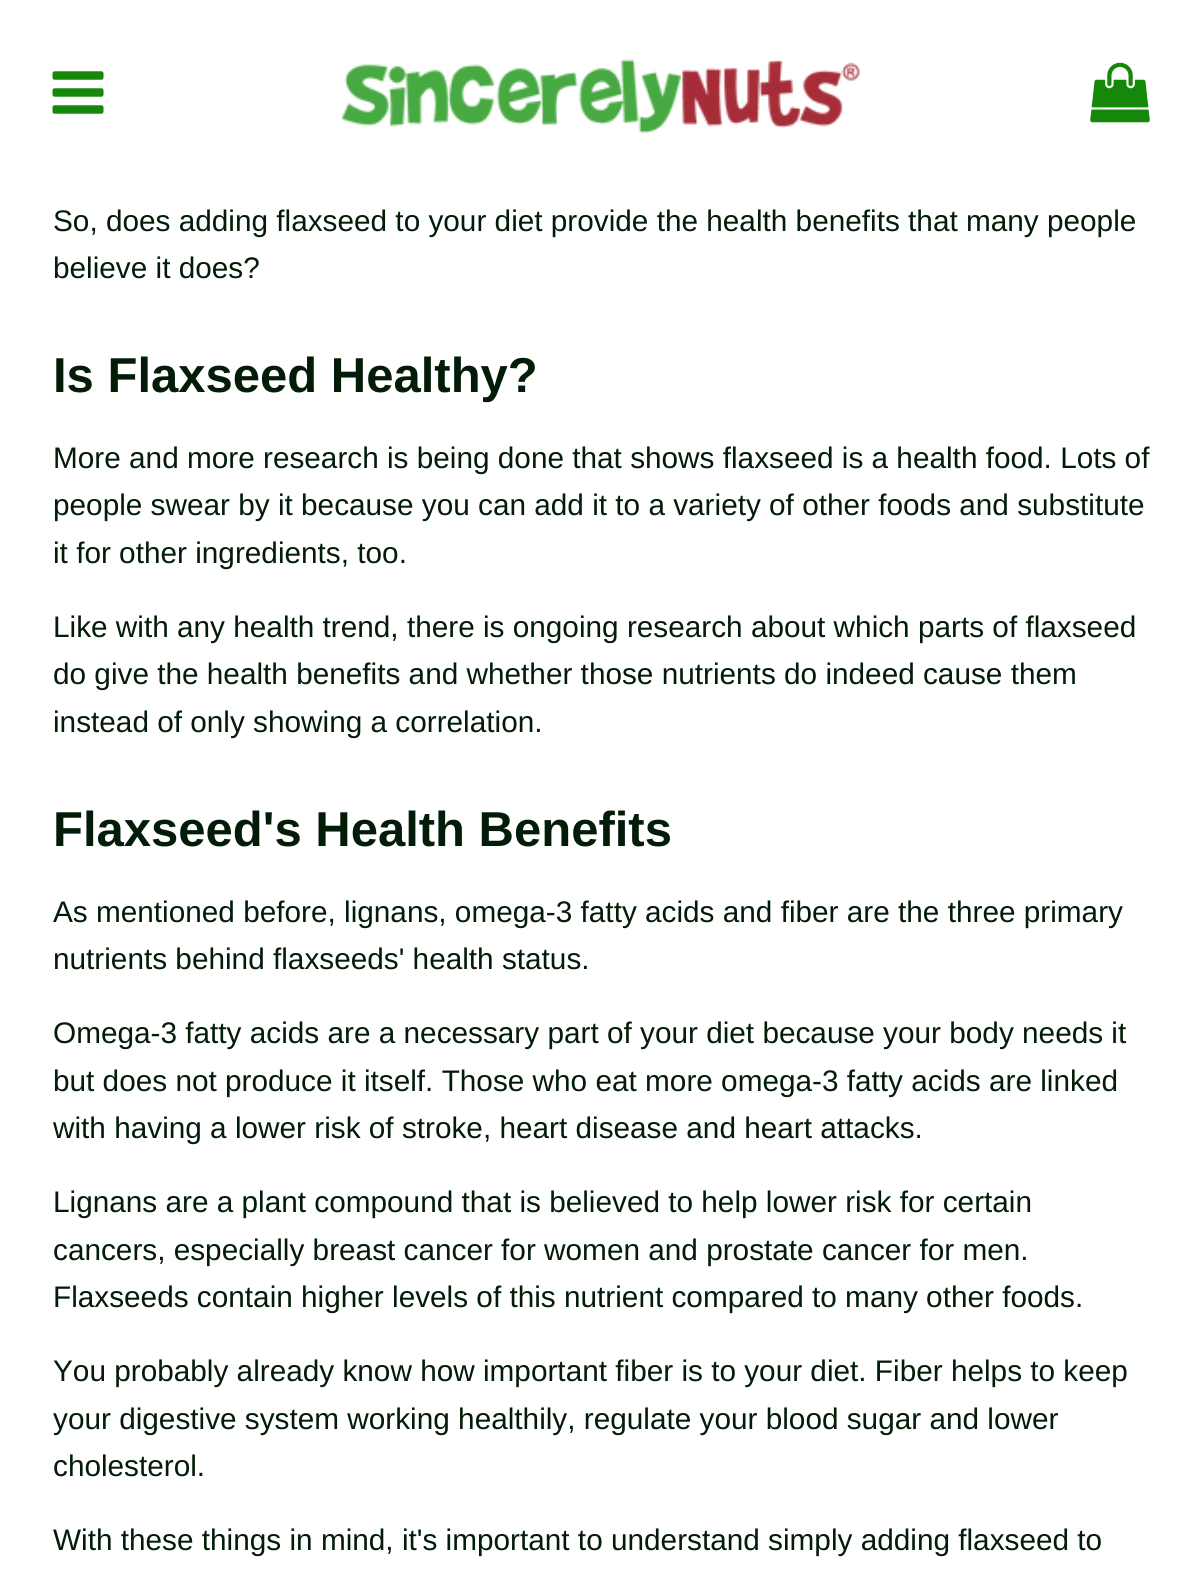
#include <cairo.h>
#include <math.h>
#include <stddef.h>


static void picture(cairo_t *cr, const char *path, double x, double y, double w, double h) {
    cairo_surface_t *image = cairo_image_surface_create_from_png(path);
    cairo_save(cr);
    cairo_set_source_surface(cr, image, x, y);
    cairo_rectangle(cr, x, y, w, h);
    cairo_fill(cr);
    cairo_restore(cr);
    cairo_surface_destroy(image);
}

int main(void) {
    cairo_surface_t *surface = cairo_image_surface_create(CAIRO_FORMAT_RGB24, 1202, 1570);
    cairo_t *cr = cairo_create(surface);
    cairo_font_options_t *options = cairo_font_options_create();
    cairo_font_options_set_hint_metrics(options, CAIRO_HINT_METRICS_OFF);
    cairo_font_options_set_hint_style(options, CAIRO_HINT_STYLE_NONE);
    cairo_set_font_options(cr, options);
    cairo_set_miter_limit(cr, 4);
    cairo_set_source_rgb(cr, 1, 1, 1);
    cairo_paint(cr);
    picture(cr, "img1.png", 52, 71, 52, 43);
    picture(cr, "img2.png", 341, 59, 519, 75);
    picture(cr, "img3.png", 1090, 62, 60, 61);
    cairo_select_font_face(cr, "Liberation Sans", CAIRO_FONT_SLANT_NORMAL, CAIRO_FONT_WEIGHT_NORMAL);
    cairo_set_font_size(cr, 29.75);
    cairo_set_source_rgb(cr, 0.008, 0.11, 0.035);
    cairo_move_to(cr, 53, 231);
    cairo_show_text(cr, "So, does adding flaxseed to your diet provide the health benefits that many people");
    cairo_move_to(cr, 53, 278);
    cairo_show_text(cr, "believe it does?");
    cairo_select_font_face(cr, "Liberation Sans", CAIRO_FONT_SLANT_NORMAL, CAIRO_FONT_WEIGHT_BOLD);
    cairo_set_font_size(cr, 49);
    cairo_move_to(cr, 53, 392);
    cairo_show_text(cr, "Is Flaxseed Healthy?");
    cairo_select_font_face(cr, "Liberation Sans", CAIRO_FONT_SLANT_NORMAL, CAIRO_FONT_WEIGHT_NORMAL);
    cairo_set_font_size(cr, 29.75);
    cairo_move_to(cr, 53, 468);
    cairo_show_text(cr, "More and more research is being done that shows flaxseed is a health food. Lots of");
    cairo_move_to(cr, 53, 515);
    cairo_show_text(cr, "people swear by it because you can add it to a variety of other foods and substitute");
    cairo_move_to(cr, 53, 563);
    cairo_show_text(cr, "it for other ingredients, too.");
    cairo_move_to(cr, 53, 637);
    cairo_show_text(cr, "Like with any health trend, there is ongoing research about which parts of flaxseed");
    cairo_move_to(cr, 53, 684);
    cairo_show_text(cr, "do give the health benefits and whether those nutrients do indeed cause them");
    cairo_move_to(cr, 53, 732);
    cairo_show_text(cr, "instead of only showing a correlation.");
    cairo_select_font_face(cr, "Liberation Sans", CAIRO_FONT_SLANT_NORMAL, CAIRO_FONT_WEIGHT_BOLD);
    cairo_set_font_size(cr, 49);
    cairo_move_to(cr, 53, 846);
    cairo_show_text(cr, "Flaxseed's Health Benefits");
    cairo_select_font_face(cr, "Liberation Sans", CAIRO_FONT_SLANT_NORMAL, CAIRO_FONT_WEIGHT_NORMAL);
    cairo_set_font_size(cr, 29.75);
    cairo_move_to(cr, 53, 922);
    cairo_show_text(cr, "As mentioned before, lignans, omega-3 fatty acids and fiber are the three primary");
    cairo_move_to(cr, 53, 969);
    cairo_show_text(cr, "nutrients behind flaxseeds' health status.");
    cairo_move_to(cr, 53, 1043);
    cairo_show_text(cr, "Omega-3 fatty acids are a necessary part of your diet because your body needs it");
    cairo_move_to(cr, 53, 1091);
    cairo_show_text(cr, "but does not produce it itself. Those who eat more omega-3 fatty acids are linked");
    cairo_move_to(cr, 53, 1138);
    cairo_show_text(cr, "with having a lower risk of stroke, heart disease and heart attacks.");
    cairo_move_to(cr, 53, 1212);
    cairo_show_text(cr, "Lignans are a plant compound that is believed to help lower risk for certain");
    cairo_move_to(cr, 53, 1260);
    cairo_show_text(cr, "cancers, especially breast cancer for women and prostate cancer for men.");
    cairo_move_to(cr, 53, 1307);
    cairo_show_text(cr, "Flaxseeds contain higher levels of this nutrient compared to many other foods.");
    cairo_move_to(cr, 53, 1381);
    cairo_show_text(cr, "You probably already know how important fiber is to your diet. Fiber helps to keep");
    cairo_move_to(cr, 53, 1429);
    cairo_show_text(cr, "your digestive system working healthily, regulate your blood sugar and lower");
    cairo_move_to(cr, 53, 1476);
    cairo_show_text(cr, "cholesterol.");
    cairo_move_to(cr, 53, 1550);
    cairo_show_text(cr, "With these things in mind, it's important to understand simply adding flaxseed to");
    cairo_surface_write_to_png(surface, "page.png");
    cairo_font_options_destroy(options);
    cairo_destroy(cr);
    cairo_surface_destroy(surface);
    return 0;
}
